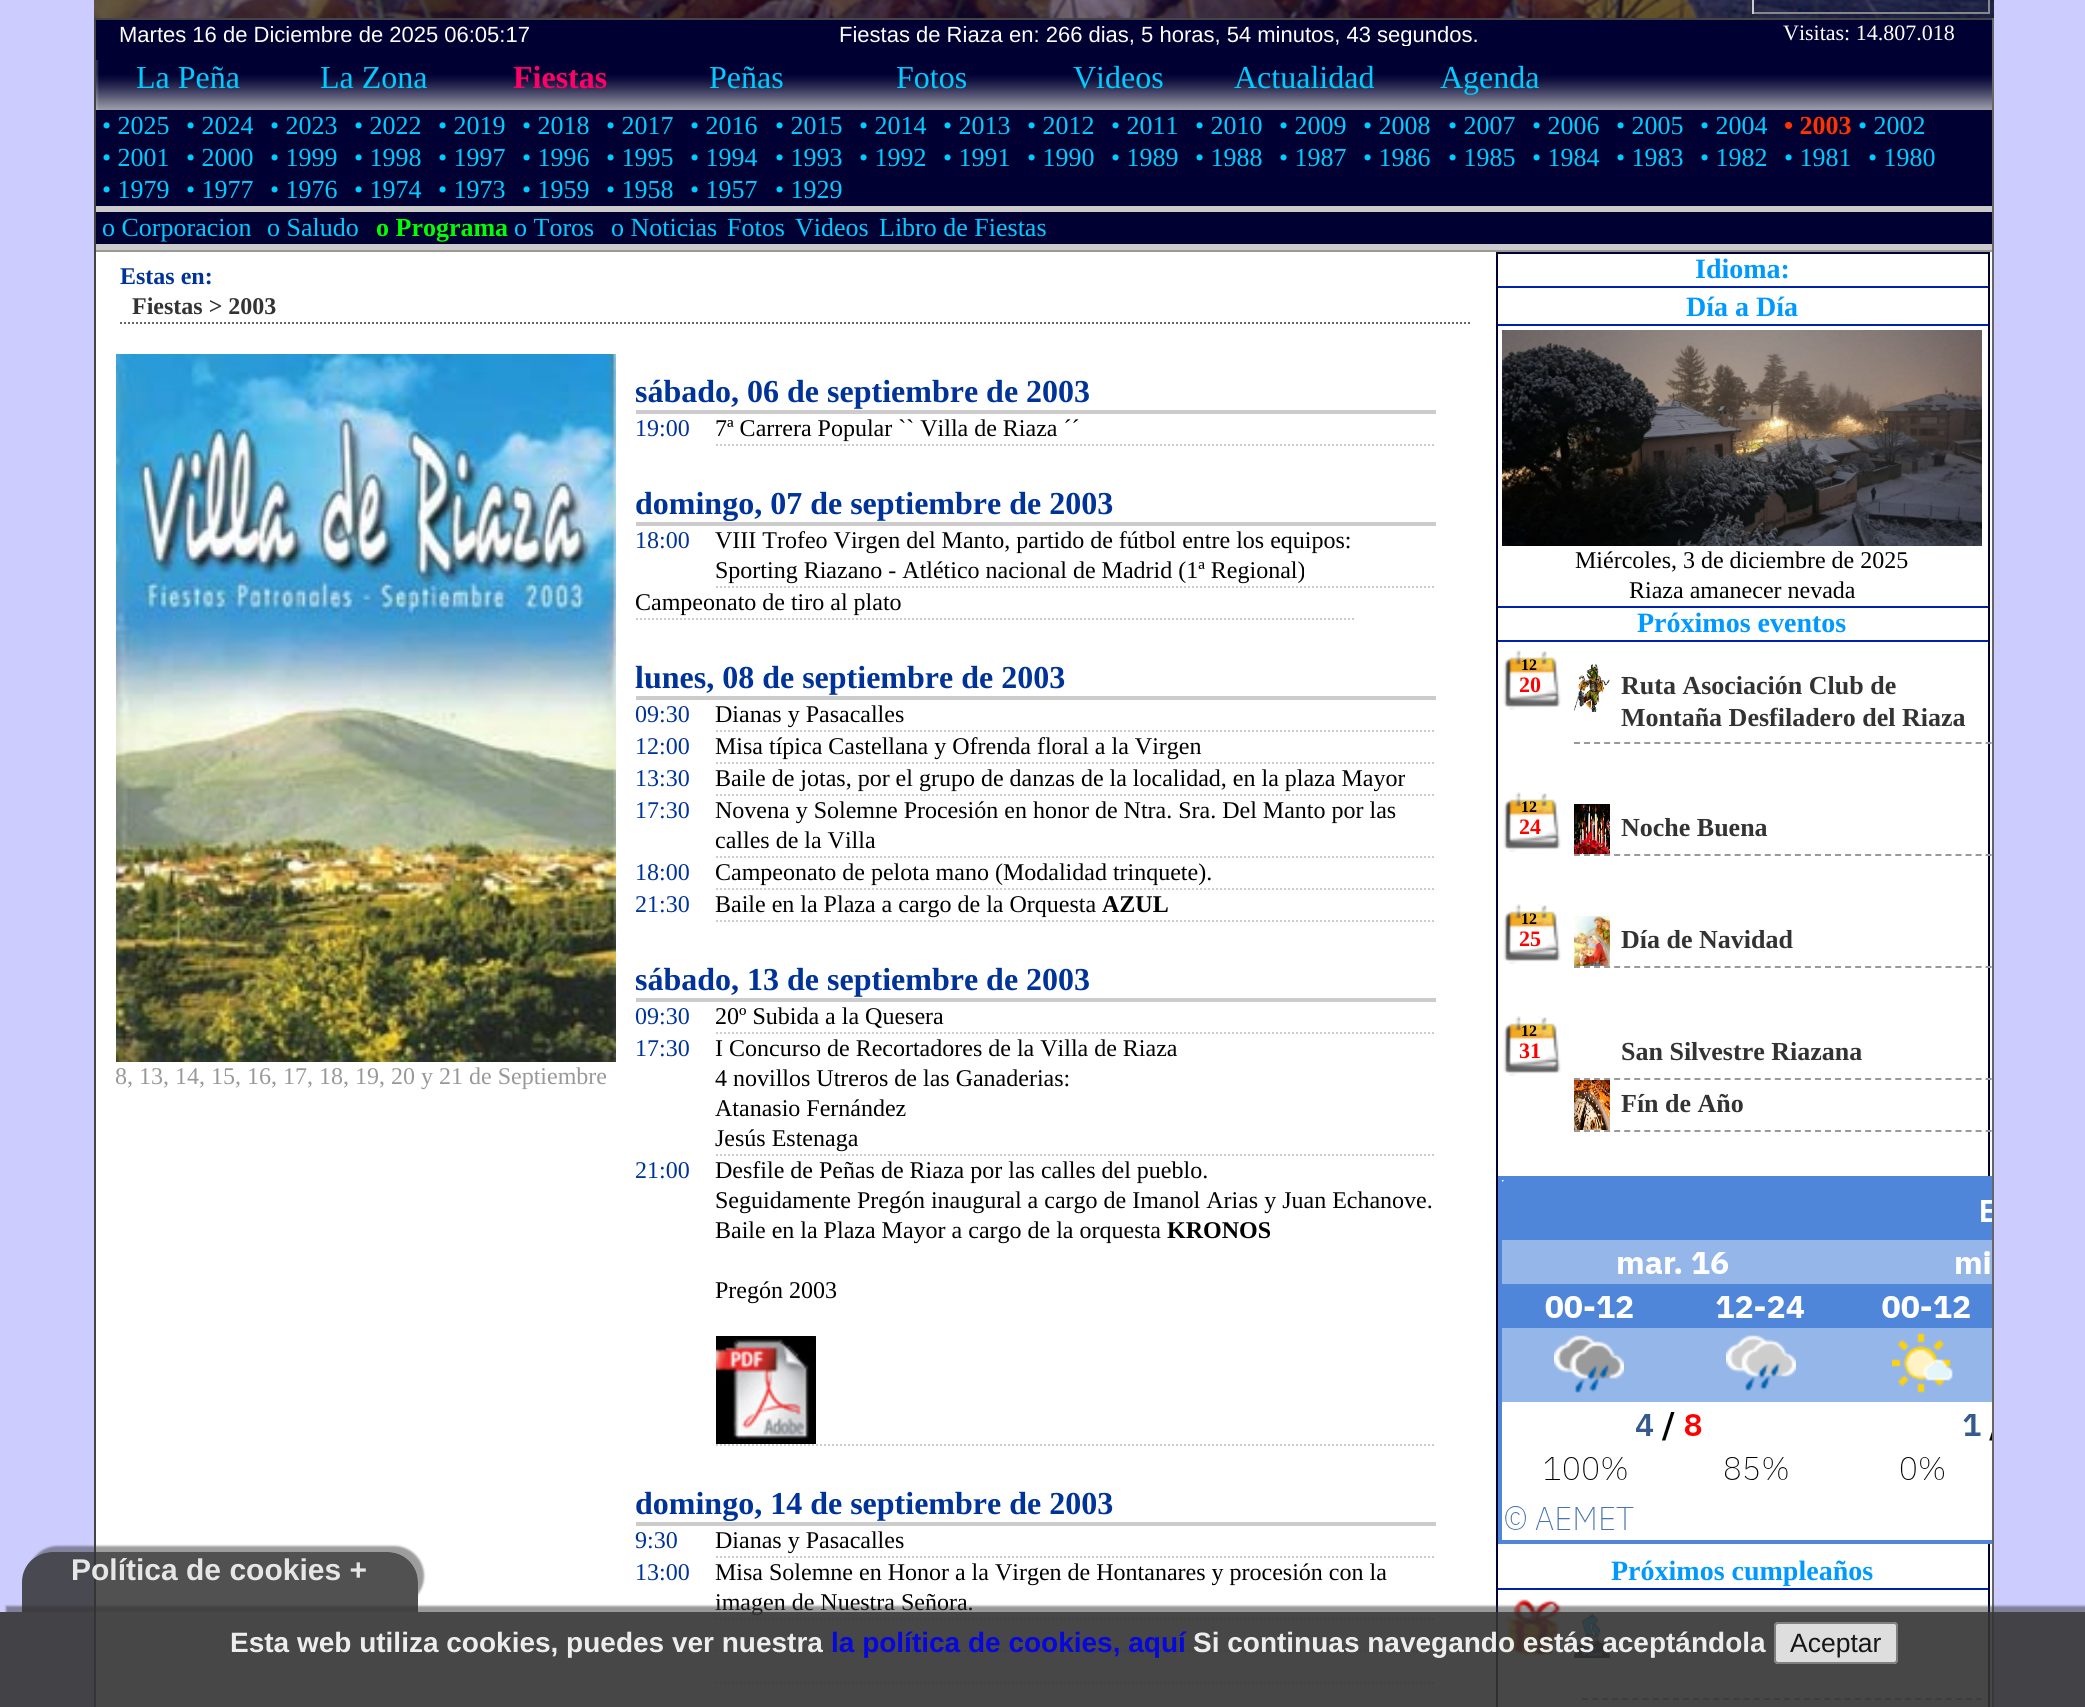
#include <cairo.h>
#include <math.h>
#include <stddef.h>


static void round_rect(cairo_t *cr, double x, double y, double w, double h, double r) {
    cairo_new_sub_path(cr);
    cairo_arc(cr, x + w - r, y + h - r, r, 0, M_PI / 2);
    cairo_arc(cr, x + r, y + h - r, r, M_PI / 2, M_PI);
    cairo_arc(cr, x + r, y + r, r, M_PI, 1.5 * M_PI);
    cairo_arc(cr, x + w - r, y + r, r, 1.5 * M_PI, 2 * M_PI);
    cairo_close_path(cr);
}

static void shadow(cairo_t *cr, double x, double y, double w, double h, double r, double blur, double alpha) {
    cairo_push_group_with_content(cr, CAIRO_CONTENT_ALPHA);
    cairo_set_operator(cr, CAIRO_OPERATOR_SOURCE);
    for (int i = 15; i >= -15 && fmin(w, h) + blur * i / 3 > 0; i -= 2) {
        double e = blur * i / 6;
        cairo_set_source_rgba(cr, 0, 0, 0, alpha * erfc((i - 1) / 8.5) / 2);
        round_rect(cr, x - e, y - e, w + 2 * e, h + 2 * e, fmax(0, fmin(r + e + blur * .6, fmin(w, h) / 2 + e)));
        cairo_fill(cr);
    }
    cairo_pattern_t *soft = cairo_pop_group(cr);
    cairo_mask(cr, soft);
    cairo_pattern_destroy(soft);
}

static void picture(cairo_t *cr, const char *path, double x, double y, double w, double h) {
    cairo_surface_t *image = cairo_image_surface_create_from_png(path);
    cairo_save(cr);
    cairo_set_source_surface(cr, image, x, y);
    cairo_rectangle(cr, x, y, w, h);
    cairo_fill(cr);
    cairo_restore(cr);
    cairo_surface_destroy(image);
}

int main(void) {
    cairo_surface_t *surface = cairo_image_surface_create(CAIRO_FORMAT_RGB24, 2085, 1707);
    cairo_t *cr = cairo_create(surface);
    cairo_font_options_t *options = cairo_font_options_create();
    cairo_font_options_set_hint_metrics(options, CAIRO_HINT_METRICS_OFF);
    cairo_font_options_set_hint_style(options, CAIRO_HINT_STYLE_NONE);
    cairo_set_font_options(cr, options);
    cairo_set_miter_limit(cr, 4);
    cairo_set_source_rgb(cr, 0.8, 0.8, 1);
    cairo_paint(cr);
    picture(cr, "img1.png", 94, 0, 1900, 18);
    cairo_set_source_rgb(cr, 0.533, 0.533, 0.533);
    cairo_rectangle(cr, 1988, 0, 2, 14);
    cairo_fill(cr);
    cairo_rectangle(cr, 1752, 12, 238, 2);
    cairo_fill(cr);
    cairo_set_source_rgb(cr, 0.8, 0.8, 0.8);
    cairo_rectangle(cr, 1752, 0, 2, 14);
    cairo_fill(cr);
    cairo_set_source_rgb(cr, 1, 1, 1);
    cairo_rectangle(cr, 96, 252, 1896, 1455);
    cairo_fill(cr);
    cairo_set_source_rgb(cr, 0.267, 0.267, 0.267);
    cairo_rectangle(cr, 94, 18, 1900, 2);
    cairo_fill(cr);
    cairo_set_source_rgb(cr, 0.4, 0.4, 0.4);
    cairo_rectangle(cr, 1992, 18, 2, 1689);
    cairo_fill(cr);
    cairo_set_source_rgb(cr, 0.267, 0.267, 0.267);
    cairo_rectangle(cr, 94, 18, 2, 1689);
    cairo_fill(cr);
    cairo_set_source_rgb(cr, 0, 0, 0.2);
    cairo_rectangle(cr, 96, 20, 1896, 40);
    cairo_fill(cr);
    cairo_select_font_face(cr, "Liberation Sans", CAIRO_FONT_SLANT_NORMAL, CAIRO_FONT_WEIGHT_NORMAL);
    cairo_set_font_size(cr, 22);
    cairo_set_source_rgb(cr, 1, 1, 1);
    cairo_move_to(cr, 119, 42);
    cairo_show_text(cr, "Martes 16 de Diciembre de 2025 06:05:17");
    cairo_save(cr);
    cairo_rectangle(cr, 840, 22, 700, 24);
    cairo_clip(cr);
    cairo_move_to(cr, 839, 42);
    cairo_show_text(cr, "Fiestas de Riaza en: 266 dias, 5 horas, 54 minutos, 43 segundos.");
    cairo_restore(cr);
    cairo_select_font_face(cr, "Liberation Serif", CAIRO_FONT_SLANT_NORMAL, CAIRO_FONT_WEIGHT_NORMAL);
    cairo_move_to(cr, 1783, 40);
    cairo_show_text(cr, "Visitas: 14.807.018");
    picture(cr, "img2.png", 96, 60, 1896, 50);
    cairo_set_font_size(cr, 32);
    cairo_set_source_rgb(cr, 0, 0.8, 1);
    cairo_move_to(cr, 136, 88);
    cairo_show_text(cr, "La Peña");
    cairo_move_to(cr, 320, 88);
    cairo_show_text(cr, "La Zona");
    cairo_select_font_face(cr, "Liberation Serif", CAIRO_FONT_SLANT_NORMAL, CAIRO_FONT_WEIGHT_BOLD);
    cairo_set_source_rgb(cr, 1, 0, 0.4);
    cairo_move_to(cr, 513, 88);
    cairo_show_text(cr, "Fiestas");
    cairo_select_font_face(cr, "Liberation Serif", CAIRO_FONT_SLANT_NORMAL, CAIRO_FONT_WEIGHT_NORMAL);
    cairo_set_source_rgb(cr, 0, 0.8, 1);
    cairo_move_to(cr, 709, 88);
    cairo_show_text(cr, "Peñas");
    cairo_move_to(cr, 896, 88);
    cairo_show_text(cr, "Fotos");
    cairo_move_to(cr, 1073, 88);
    cairo_show_text(cr, "Videos");
    cairo_move_to(cr, 1234, 88);
    cairo_show_text(cr, "Actualidad");
    cairo_move_to(cr, 1440, 88);
    cairo_show_text(cr, "Agenda");
    cairo_set_source_rgb(cr, 0, 0, 0.2);
    cairo_rectangle(cr, 96, 110, 1896, 96);
    cairo_fill(cr);
    cairo_set_source_rgb(cr, 0.8, 0.8, 0.8);
    cairo_rectangle(cr, 96, 206, 1896, 6);
    cairo_fill(cr);
    cairo_set_font_size(cr, 26);
    cairo_set_source_rgb(cr, 0, 0.8, 1);
    cairo_move_to(cr, 102, 134);
    cairo_show_text(cr, "• 2025");
    cairo_move_to(cr, 186, 134);
    cairo_show_text(cr, "• 2024");
    cairo_move_to(cr, 270, 134);
    cairo_show_text(cr, "• 2023");
    cairo_move_to(cr, 354, 134);
    cairo_show_text(cr, "• 2022");
    cairo_move_to(cr, 438, 134);
    cairo_show_text(cr, "• 2019");
    cairo_move_to(cr, 522, 134);
    cairo_show_text(cr, "• 2018");
    cairo_move_to(cr, 606, 134);
    cairo_show_text(cr, "• 2017");
    cairo_move_to(cr, 690, 134);
    cairo_show_text(cr, "• 2016");
    cairo_move_to(cr, 775, 134);
    cairo_show_text(cr, "• 2015");
    cairo_move_to(cr, 859, 134);
    cairo_show_text(cr, "• 2014");
    cairo_move_to(cr, 943, 134);
    cairo_show_text(cr, "• 2013");
    cairo_move_to(cr, 1027, 134);
    cairo_show_text(cr, "• 2012");
    cairo_move_to(cr, 1111, 134);
    cairo_show_text(cr, "• 2011");
    cairo_move_to(cr, 1195, 134);
    cairo_show_text(cr, "• 2010");
    cairo_move_to(cr, 1279, 134);
    cairo_show_text(cr, "• 2009");
    cairo_move_to(cr, 1363, 134);
    cairo_show_text(cr, "• 2008");
    cairo_move_to(cr, 1448, 134);
    cairo_show_text(cr, "• 2007");
    cairo_move_to(cr, 1532, 134);
    cairo_show_text(cr, "• 2006");
    cairo_move_to(cr, 1616, 134);
    cairo_show_text(cr, "• 2005");
    cairo_move_to(cr, 1700, 134);
    cairo_show_text(cr, "• 2004");
    cairo_select_font_face(cr, "Liberation Serif", CAIRO_FONT_SLANT_NORMAL, CAIRO_FONT_WEIGHT_BOLD);
    cairo_set_source_rgb(cr, 1, 0.2, 0);
    cairo_move_to(cr, 1784, 134);
    cairo_show_text(cr, "• 2003");
    cairo_select_font_face(cr, "Liberation Serif", CAIRO_FONT_SLANT_NORMAL, CAIRO_FONT_WEIGHT_NORMAL);
    cairo_set_source_rgb(cr, 0, 0.8, 1);
    cairo_move_to(cr, 1858, 134);
    cairo_show_text(cr, "• 2002");
    cairo_move_to(cr, 102, 166);
    cairo_show_text(cr, "• 2001");
    cairo_move_to(cr, 186, 166);
    cairo_show_text(cr, "• 2000");
    cairo_move_to(cr, 270, 166);
    cairo_show_text(cr, "• 1999");
    cairo_move_to(cr, 354, 166);
    cairo_show_text(cr, "• 1998");
    cairo_move_to(cr, 438, 166);
    cairo_show_text(cr, "• 1997");
    cairo_move_to(cr, 522, 166);
    cairo_show_text(cr, "• 1996");
    cairo_move_to(cr, 606, 166);
    cairo_show_text(cr, "• 1995");
    cairo_move_to(cr, 690, 166);
    cairo_show_text(cr, "• 1994");
    cairo_move_to(cr, 775, 166);
    cairo_show_text(cr, "• 1993");
    cairo_move_to(cr, 859, 166);
    cairo_show_text(cr, "• 1992");
    cairo_move_to(cr, 943, 166);
    cairo_show_text(cr, "• 1991");
    cairo_move_to(cr, 1027, 166);
    cairo_show_text(cr, "• 1990");
    cairo_move_to(cr, 1111, 166);
    cairo_show_text(cr, "• 1989");
    cairo_move_to(cr, 1195, 166);
    cairo_show_text(cr, "• 1988");
    cairo_move_to(cr, 1279, 166);
    cairo_show_text(cr, "• 1987");
    cairo_move_to(cr, 1363, 166);
    cairo_show_text(cr, "• 1986");
    cairo_move_to(cr, 1448, 166);
    cairo_show_text(cr, "• 1985");
    cairo_move_to(cr, 1532, 166);
    cairo_show_text(cr, "• 1984");
    cairo_move_to(cr, 1616, 166);
    cairo_show_text(cr, "• 1983");
    cairo_move_to(cr, 1700, 166);
    cairo_show_text(cr, "• 1982");
    cairo_move_to(cr, 1784, 166);
    cairo_show_text(cr, "• 1981");
    cairo_move_to(cr, 1868, 166);
    cairo_show_text(cr, "• 1980");
    cairo_move_to(cr, 102, 198);
    cairo_show_text(cr, "• 1979");
    cairo_move_to(cr, 186, 198);
    cairo_show_text(cr, "• 1977");
    cairo_move_to(cr, 270, 198);
    cairo_show_text(cr, "• 1976");
    cairo_move_to(cr, 354, 198);
    cairo_show_text(cr, "• 1974");
    cairo_move_to(cr, 438, 198);
    cairo_show_text(cr, "• 1973");
    cairo_move_to(cr, 522, 198);
    cairo_show_text(cr, "• 1959");
    cairo_move_to(cr, 606, 198);
    cairo_show_text(cr, "• 1958");
    cairo_move_to(cr, 690, 198);
    cairo_show_text(cr, "• 1957");
    cairo_move_to(cr, 775, 198);
    cairo_show_text(cr, "• 1929");
    cairo_set_source_rgb(cr, 0, 0, 0.2);
    cairo_rectangle(cr, 96, 212, 1896, 32);
    cairo_fill(cr);
    cairo_set_source_rgb(cr, 0.8, 0.8, 0.8);
    cairo_rectangle(cr, 96, 244, 1896, 6);
    cairo_fill(cr);
    cairo_set_source_rgb(cr, 0, 0.8, 1);
    cairo_move_to(cr, 102, 236);
    cairo_show_text(cr, "ο Corporacion");
    cairo_move_to(cr, 267, 236);
    cairo_show_text(cr, "ο Saludo");
    cairo_select_font_face(cr, "Liberation Serif", CAIRO_FONT_SLANT_NORMAL, CAIRO_FONT_WEIGHT_BOLD);
    cairo_set_source_rgb(cr, 0, 1, 0);
    cairo_move_to(cr, 376, 236);
    cairo_show_text(cr, "ο Programa");
    cairo_select_font_face(cr, "Liberation Serif", CAIRO_FONT_SLANT_NORMAL, CAIRO_FONT_WEIGHT_NORMAL);
    cairo_set_source_rgb(cr, 0, 0.8, 1);
    cairo_move_to(cr, 514, 236);
    cairo_show_text(cr, "ο Toros");
    cairo_move_to(cr, 611, 236);
    cairo_show_text(cr, "ο Noticias");
    cairo_move_to(cr, 727, 236);
    cairo_show_text(cr, "Fotos");
    cairo_move_to(cr, 795, 236);
    cairo_show_text(cr, "Videos");
    cairo_move_to(cr, 879, 236);
    cairo_show_text(cr, "Libro de Fiestas");
    cairo_set_source_rgb(cr, 0.6, 0.6, 0.6);
    cairo_rectangle(cr, 96, 250, 1896, 2);
    cairo_fill(cr);
    cairo_new_path(cr);
    cairo_move_to(cr, 120, 323);
    cairo_line_to(cr, 1470, 323);
    cairo_set_source_rgb(cr, 0.4, 0.4, 0.4);
    cairo_set_dash(cr, (double[]){2, 2}, 2, 0);
    cairo_stroke(cr);
    cairo_select_font_face(cr, "Liberation Serif", CAIRO_FONT_SLANT_NORMAL, CAIRO_FONT_WEIGHT_BOLD);
    cairo_set_font_size(cr, 24);
    cairo_set_source_rgb(cr, 0, 0.2, 0.6);
    cairo_move_to(cr, 120, 284);
    cairo_show_text(cr, "Estas en:");
    cairo_set_source_rgb(cr, 0.2, 0.2, 0.2);
    cairo_move_to(cr, 132, 314);
    cairo_show_text(cr, "Fiestas > 2003");
    picture(cr, "img3.png", 116, 354, 500, 708);
    cairo_select_font_face(cr, "Liberation Serif", CAIRO_FONT_SLANT_NORMAL, CAIRO_FONT_WEIGHT_NORMAL);
    cairo_set_source_rgb(cr, 0.6, 0.6, 0.6);
    cairo_move_to(cr, 115, 1084);
    cairo_show_text(cr, "8, 13, 14, 15, 16, 17, 18, 19, 20 y 21 de Septiembre");
    cairo_set_source_rgb(cr, 0.8, 0.8, 0.8);
    cairo_rectangle(cr, 636, 410, 800, 4);
    cairo_fill(cr);
    cairo_select_font_face(cr, "Liberation Serif", CAIRO_FONT_SLANT_NORMAL, CAIRO_FONT_WEIGHT_BOLD);
    cairo_set_font_size(cr, 32);
    cairo_set_source_rgb(cr, 0, 0.2, 0.6);
    cairo_move_to(cr, 635, 402);
    cairo_show_text(cr, "sábado, 06 de septiembre de 2003");
    cairo_select_font_face(cr, "Liberation Serif", CAIRO_FONT_SLANT_NORMAL, CAIRO_FONT_WEIGHT_NORMAL);
    cairo_set_font_size(cr, 24);
    cairo_move_to(cr, 635, 436);
    cairo_show_text(cr, "19:00");
    cairo_new_path(cr);
    cairo_move_to(cr, 716, 445);
    cairo_line_to(cr, 1436, 445);
    cairo_set_source_rgb(cr, 0.8, 0.8, 0.8);
    cairo_stroke(cr);
    cairo_set_source_rgb(cr, 0, 0, 0);
    cairo_move_to(cr, 715, 436);
    cairo_show_text(cr, "7ª Carrera Popular `` Villa de Riaza ´´");
    cairo_set_source_rgb(cr, 0.8, 0.8, 0.8);
    cairo_rectangle(cr, 636, 522, 800, 4);
    cairo_fill(cr);
    cairo_select_font_face(cr, "Liberation Serif", CAIRO_FONT_SLANT_NORMAL, CAIRO_FONT_WEIGHT_BOLD);
    cairo_set_font_size(cr, 32);
    cairo_set_source_rgb(cr, 0, 0.2, 0.6);
    cairo_move_to(cr, 635, 514);
    cairo_show_text(cr, "domingo, 07 de septiembre de 2003");
    cairo_select_font_face(cr, "Liberation Serif", CAIRO_FONT_SLANT_NORMAL, CAIRO_FONT_WEIGHT_NORMAL);
    cairo_set_font_size(cr, 24);
    cairo_move_to(cr, 635, 548);
    cairo_show_text(cr, "18:00");
    cairo_new_path(cr);
    cairo_move_to(cr, 716, 587);
    cairo_line_to(cr, 1436, 587);
    cairo_set_source_rgb(cr, 0.8, 0.8, 0.8);
    cairo_stroke(cr);
    cairo_set_source_rgb(cr, 0, 0, 0);
    cairo_move_to(cr, 715, 548);
    cairo_show_text(cr, "VIII Trofeo Virgen del Manto, partido de fútbol entre los equipos:");
    cairo_move_to(cr, 715, 578);
    cairo_show_text(cr, "Sporting Riazano - Atlético nacional de Madrid (1ª Regional)");
    cairo_new_path(cr);
    cairo_move_to(cr, 636, 619);
    cairo_line_to(cr, 1356, 619);
    cairo_set_source_rgb(cr, 0.8, 0.8, 0.8);
    cairo_stroke(cr);
    cairo_set_source_rgb(cr, 0, 0, 0);
    cairo_move_to(cr, 635, 610);
    cairo_show_text(cr, "Campeonato de tiro al plato");
    cairo_set_source_rgb(cr, 0.8, 0.8, 0.8);
    cairo_rectangle(cr, 636, 696, 800, 4);
    cairo_fill(cr);
    cairo_select_font_face(cr, "Liberation Serif", CAIRO_FONT_SLANT_NORMAL, CAIRO_FONT_WEIGHT_BOLD);
    cairo_set_font_size(cr, 32);
    cairo_set_source_rgb(cr, 0, 0.2, 0.6);
    cairo_move_to(cr, 635, 688);
    cairo_show_text(cr, "lunes, 08 de septiembre de 2003");
    cairo_select_font_face(cr, "Liberation Serif", CAIRO_FONT_SLANT_NORMAL, CAIRO_FONT_WEIGHT_NORMAL);
    cairo_set_font_size(cr, 24);
    cairo_move_to(cr, 635, 722);
    cairo_show_text(cr, "09:30");
    cairo_new_path(cr);
    cairo_move_to(cr, 716, 731);
    cairo_line_to(cr, 1436, 731);
    cairo_set_source_rgb(cr, 0.8, 0.8, 0.8);
    cairo_stroke(cr);
    cairo_set_source_rgb(cr, 0, 0, 0);
    cairo_move_to(cr, 715, 722);
    cairo_show_text(cr, "Dianas y Pasacalles");
    cairo_set_source_rgb(cr, 0, 0.2, 0.6);
    cairo_move_to(cr, 635, 754);
    cairo_show_text(cr, "12:00");
    cairo_new_path(cr);
    cairo_move_to(cr, 716, 763);
    cairo_line_to(cr, 1436, 763);
    cairo_set_source_rgb(cr, 0.8, 0.8, 0.8);
    cairo_stroke(cr);
    cairo_set_source_rgb(cr, 0, 0, 0);
    cairo_move_to(cr, 715, 754);
    cairo_show_text(cr, "Misa típica Castellana y Ofrenda floral a la Virgen");
    cairo_set_source_rgb(cr, 0, 0.2, 0.6);
    cairo_move_to(cr, 635, 786);
    cairo_show_text(cr, "13:30");
    cairo_new_path(cr);
    cairo_move_to(cr, 716, 795);
    cairo_line_to(cr, 1436, 795);
    cairo_set_source_rgb(cr, 0.8, 0.8, 0.8);
    cairo_stroke(cr);
    cairo_set_source_rgb(cr, 0, 0, 0);
    cairo_move_to(cr, 715, 786);
    cairo_show_text(cr, "Baile de jotas, por el grupo de danzas de la localidad, en la plaza Mayor");
    cairo_set_source_rgb(cr, 0, 0.2, 0.6);
    cairo_move_to(cr, 635, 818);
    cairo_show_text(cr, "17:30");
    cairo_new_path(cr);
    cairo_move_to(cr, 716, 857);
    cairo_line_to(cr, 1436, 857);
    cairo_set_source_rgb(cr, 0.8, 0.8, 0.8);
    cairo_stroke(cr);
    cairo_set_source_rgb(cr, 0, 0, 0);
    cairo_move_to(cr, 715, 818);
    cairo_show_text(cr, "Novena y Solemne Procesión en honor de Ntra. Sra. Del Manto por las");
    cairo_move_to(cr, 715, 848);
    cairo_show_text(cr, "calles de la Villa");
    cairo_set_source_rgb(cr, 0, 0.2, 0.6);
    cairo_move_to(cr, 635, 880);
    cairo_show_text(cr, "18:00");
    cairo_new_path(cr);
    cairo_move_to(cr, 716, 889);
    cairo_line_to(cr, 1436, 889);
    cairo_set_source_rgb(cr, 0.8, 0.8, 0.8);
    cairo_stroke(cr);
    cairo_set_source_rgb(cr, 0, 0, 0);
    cairo_move_to(cr, 715, 880);
    cairo_show_text(cr, "Campeonato de pelota mano (Modalidad trinquete).");
    cairo_set_source_rgb(cr, 0, 0.2, 0.6);
    cairo_move_to(cr, 635, 912);
    cairo_show_text(cr, "21:30");
    cairo_new_path(cr);
    cairo_move_to(cr, 716, 921);
    cairo_line_to(cr, 1436, 921);
    cairo_set_source_rgb(cr, 0.8, 0.8, 0.8);
    cairo_stroke(cr);
    cairo_set_source_rgb(cr, 0, 0, 0);
    cairo_move_to(cr, 715, 912);
    cairo_show_text(cr, "Baile en la Plaza a cargo de la Orquesta");
    cairo_select_font_face(cr, "Liberation Serif", CAIRO_FONT_SLANT_NORMAL, CAIRO_FONT_WEIGHT_BOLD);
    cairo_move_to(cr, 1102, 912);
    cairo_show_text(cr, "AZUL");
    cairo_set_source_rgb(cr, 0.8, 0.8, 0.8);
    cairo_rectangle(cr, 636, 998, 800, 4);
    cairo_fill(cr);
    cairo_set_font_size(cr, 32);
    cairo_set_source_rgb(cr, 0, 0.2, 0.6);
    cairo_move_to(cr, 635, 990);
    cairo_show_text(cr, "sábado, 13 de septiembre de 2003");
    cairo_select_font_face(cr, "Liberation Serif", CAIRO_FONT_SLANT_NORMAL, CAIRO_FONT_WEIGHT_NORMAL);
    cairo_set_font_size(cr, 24);
    cairo_move_to(cr, 635, 1024);
    cairo_show_text(cr, "09:30");
    cairo_new_path(cr);
    cairo_move_to(cr, 716, 1033);
    cairo_line_to(cr, 1436, 1033);
    cairo_set_source_rgb(cr, 0.8, 0.8, 0.8);
    cairo_stroke(cr);
    cairo_set_source_rgb(cr, 0, 0, 0);
    cairo_move_to(cr, 715, 1024);
    cairo_show_text(cr, "20º Subida a la Quesera");
    cairo_set_source_rgb(cr, 0, 0.2, 0.6);
    cairo_move_to(cr, 635, 1056);
    cairo_show_text(cr, "17:30");
    cairo_new_path(cr);
    cairo_move_to(cr, 716, 1155);
    cairo_line_to(cr, 1436, 1155);
    cairo_set_source_rgb(cr, 0.8, 0.8, 0.8);
    cairo_stroke(cr);
    cairo_set_source_rgb(cr, 0, 0, 0);
    cairo_move_to(cr, 715, 1056);
    cairo_show_text(cr, "I Concurso de Recortadores de la Villa de Riaza");
    cairo_move_to(cr, 715, 1086);
    cairo_show_text(cr, "4 novillos Utreros de las Ganaderias:");
    cairo_move_to(cr, 715, 1116);
    cairo_show_text(cr, "Atanasio Fernández");
    cairo_move_to(cr, 715, 1146);
    cairo_show_text(cr, "Jesús Estenaga");
    cairo_set_source_rgb(cr, 0, 0.2, 0.6);
    cairo_move_to(cr, 635, 1178);
    cairo_show_text(cr, "21:00");
    cairo_new_path(cr);
    cairo_move_to(cr, 716, 1445);
    cairo_line_to(cr, 1436, 1445);
    cairo_set_source_rgb(cr, 0.8, 0.8, 0.8);
    cairo_stroke(cr);
    cairo_set_source_rgb(cr, 0, 0, 0);
    cairo_move_to(cr, 715, 1178);
    cairo_show_text(cr, "Desfile de Peñas de Riaza por las calles del pueblo.");
    cairo_move_to(cr, 715, 1208);
    cairo_show_text(cr, "Seguidamente Pregón inaugural a cargo de Imanol Arias y Juan Echanove.");
    cairo_move_to(cr, 715, 1238);
    cairo_show_text(cr, "Baile en la Plaza Mayor a cargo de la orquesta");
    cairo_select_font_face(cr, "Liberation Serif", CAIRO_FONT_SLANT_NORMAL, CAIRO_FONT_WEIGHT_BOLD);
    cairo_move_to(cr, 1167, 1238);
    cairo_show_text(cr, "KRONOS");
    cairo_select_font_face(cr, "Liberation Serif", CAIRO_FONT_SLANT_NORMAL, CAIRO_FONT_WEIGHT_NORMAL);
    cairo_move_to(cr, 715, 1298);
    cairo_show_text(cr, "Pregón 2003");
    picture(cr, "img4.png", 716, 1336, 100, 108);
    cairo_set_source_rgb(cr, 0.8, 0.8, 0.8);
    cairo_rectangle(cr, 636, 1522, 800, 4);
    cairo_fill(cr);
    cairo_select_font_face(cr, "Liberation Serif", CAIRO_FONT_SLANT_NORMAL, CAIRO_FONT_WEIGHT_BOLD);
    cairo_set_font_size(cr, 32);
    cairo_set_source_rgb(cr, 0, 0.2, 0.6);
    cairo_move_to(cr, 635, 1514);
    cairo_show_text(cr, "domingo, 14 de septiembre de 2003");
    cairo_select_font_face(cr, "Liberation Serif", CAIRO_FONT_SLANT_NORMAL, CAIRO_FONT_WEIGHT_NORMAL);
    cairo_set_font_size(cr, 24);
    cairo_move_to(cr, 635, 1548);
    cairo_show_text(cr, "9:30");
    cairo_new_path(cr);
    cairo_move_to(cr, 716, 1557);
    cairo_line_to(cr, 1436, 1557);
    cairo_set_source_rgb(cr, 0.8, 0.8, 0.8);
    cairo_stroke(cr);
    cairo_set_source_rgb(cr, 0, 0, 0);
    cairo_move_to(cr, 715, 1548);
    cairo_show_text(cr, "Dianas y Pasacalles");
    cairo_set_source_rgb(cr, 0, 0.2, 0.6);
    cairo_move_to(cr, 635, 1580);
    cairo_show_text(cr, "13:00");
    cairo_new_path(cr);
    cairo_move_to(cr, 716, 1619);
    cairo_line_to(cr, 1436, 1619);
    cairo_set_source_rgb(cr, 0.8, 0.8, 0.8);
    cairo_stroke(cr);
    cairo_set_source_rgb(cr, 0, 0, 0);
    cairo_move_to(cr, 715, 1580);
    cairo_show_text(cr, "Misa Solemne en Honor a la Virgen de Hontanares y procesión con la");
    cairo_move_to(cr, 715, 1610);
    cairo_show_text(cr, "imagen de Nuestra Señora.");
    cairo_new_path(cr);
    cairo_move_to(cr, 716, 1651);
    cairo_line_to(cr, 1436, 1651);
    cairo_set_source_rgb(cr, 0.8, 0.8, 0.8);
    cairo_stroke(cr);
    cairo_new_path(cr);
    cairo_move_to(cr, 716, 1683);
    cairo_line_to(cr, 1436, 1683);
    cairo_stroke(cr);
    cairo_rectangle(cr, 1497, 253, 492, 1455);
    cairo_set_source_rgb(cr, 0, 0, 0.2);
    cairo_set_dash(cr, NULL, 0, 0);
    cairo_stroke(cr);
    cairo_set_source_rgb(cr, 0, 0.133, 0.667);
    cairo_rectangle(cr, 1498, 286, 490, 2);
    cairo_fill(cr);
    cairo_select_font_face(cr, "Liberation Serif", CAIRO_FONT_SLANT_NORMAL, CAIRO_FONT_WEIGHT_BOLD);
    cairo_set_font_size(cr, 28);
    cairo_set_source_rgb(cr, 0, 0.6, 1);
    cairo_move_to(cr, 1695, 278);
    cairo_show_text(cr, "Idioma:");
    cairo_set_source_rgb(cr, 0, 0.133, 0.667);
    cairo_rectangle(cr, 1498, 324, 490, 2);
    cairo_fill(cr);
    cairo_set_source_rgb(cr, 0, 0.6, 1);
    cairo_move_to(cr, 1686, 316);
    cairo_show_text(cr, "Día a Día");
    cairo_set_source_rgb(cr, 0, 0.133, 0.667);
    cairo_rectangle(cr, 1498, 606, 490, 2);
    cairo_fill(cr);
    picture(cr, "img5.png", 1502, 330, 480, 216);
    cairo_select_font_face(cr, "Liberation Serif", CAIRO_FONT_SLANT_NORMAL, CAIRO_FONT_WEIGHT_NORMAL);
    cairo_set_font_size(cr, 24);
    cairo_set_source_rgb(cr, 0, 0, 0);
    cairo_move_to(cr, 1575, 568);
    cairo_show_text(cr, "Miércoles, 3 de diciembre de 2025");
    cairo_move_to(cr, 1629, 598);
    cairo_show_text(cr, "Riaza amanecer nevada");
    cairo_set_source_rgb(cr, 0, 0.133, 0.667);
    cairo_rectangle(cr, 1498, 640, 490, 2);
    cairo_fill(cr);
    cairo_select_font_face(cr, "Liberation Serif", CAIRO_FONT_SLANT_NORMAL, CAIRO_FONT_WEIGHT_BOLD);
    cairo_set_font_size(cr, 28);
    cairo_set_source_rgb(cr, 0, 0.6, 1);
    cairo_move_to(cr, 1637, 632);
    cairo_show_text(cr, "Próximos eventos");
    picture(cr, "img6.png", 1503, 650, 58, 60);
    cairo_set_font_size(cr, 16);
    cairo_set_source_rgb(cr, 0, 0, 0);
    cairo_move_to(cr, 1521, 670);
    cairo_show_text(cr, "12");
    cairo_set_font_size(cr, 22);
    cairo_set_source_rgb(cr, 1, 0, 0);
    cairo_move_to(cr, 1519, 692);
    cairo_show_text(cr, "20");
    cairo_new_path(cr);
    cairo_move_to(cr, 1574, 743);
    cairo_line_to(cr, 1992, 743);
    cairo_set_source_rgb(cr, 0.6, 0.6, 0.6);
    cairo_set_dash(cr, (double[]){6, 4.04}, 2, 0);
    cairo_stroke(cr);
    picture(cr, "img7.png", 1574, 664, 36, 48);
    cairo_set_font_size(cr, 26);
    cairo_set_source_rgb(cr, 0.2, 0.2, 0.2);
    cairo_move_to(cr, 1621, 694);
    cairo_show_text(cr, "Ruta Asociación Club de");
    cairo_move_to(cr, 1621, 726);
    cairo_show_text(cr, "Montaña Desfiladero del Riaza");
    picture(cr, "img6.png", 1503, 792, 58, 60);
    cairo_set_font_size(cr, 16);
    cairo_set_source_rgb(cr, 0, 0, 0);
    cairo_move_to(cr, 1521, 812);
    cairo_show_text(cr, "12");
    cairo_set_font_size(cr, 22);
    cairo_set_source_rgb(cr, 1, 0, 0);
    cairo_move_to(cr, 1519, 834);
    cairo_show_text(cr, "24");
    cairo_new_path(cr);
    cairo_move_to(cr, 1574, 855);
    cairo_line_to(cr, 1992, 855);
    cairo_set_source_rgb(cr, 0.6, 0.6, 0.6);
    cairo_stroke(cr);
    picture(cr, "img8.png", 1574, 804, 36, 50);
    cairo_set_font_size(cr, 26);
    cairo_set_source_rgb(cr, 0.2, 0.2, 0.2);
    cairo_move_to(cr, 1621, 836);
    cairo_show_text(cr, "Noche Buena");
    picture(cr, "img6.png", 1503, 904, 58, 60);
    cairo_set_font_size(cr, 16);
    cairo_set_source_rgb(cr, 0, 0, 0);
    cairo_move_to(cr, 1521, 924);
    cairo_show_text(cr, "12");
    cairo_set_font_size(cr, 22);
    cairo_set_source_rgb(cr, 1, 0, 0);
    cairo_move_to(cr, 1519, 946);
    cairo_show_text(cr, "25");
    cairo_new_path(cr);
    cairo_move_to(cr, 1574, 967);
    cairo_line_to(cr, 1992, 967);
    cairo_set_source_rgb(cr, 0.6, 0.6, 0.6);
    cairo_stroke(cr);
    picture(cr, "img9.png", 1574, 916, 36, 50);
    cairo_set_font_size(cr, 26);
    cairo_set_source_rgb(cr, 0.2, 0.2, 0.2);
    cairo_move_to(cr, 1621, 948);
    cairo_show_text(cr, "Día de Navidad");
    picture(cr, "img6.png", 1503, 1016, 58, 60);
    cairo_set_font_size(cr, 16);
    cairo_set_source_rgb(cr, 0, 0, 0);
    cairo_move_to(cr, 1521, 1036);
    cairo_show_text(cr, "12");
    cairo_set_font_size(cr, 22);
    cairo_set_source_rgb(cr, 1, 0, 0);
    cairo_move_to(cr, 1519, 1058);
    cairo_show_text(cr, "31");
    cairo_new_path(cr);
    cairo_move_to(cr, 1574, 1079);
    cairo_line_to(cr, 1992, 1079);
    cairo_set_source_rgb(cr, 0.6, 0.6, 0.6);
    cairo_stroke(cr);
    cairo_set_font_size(cr, 26);
    cairo_set_source_rgb(cr, 0.2, 0.2, 0.2);
    cairo_move_to(cr, 1621, 1060);
    cairo_show_text(cr, "San Silvestre Riazana");
    cairo_new_path(cr);
    cairo_move_to(cr, 1574, 1131);
    cairo_line_to(cr, 1992, 1131);
    cairo_set_source_rgb(cr, 0.6, 0.6, 0.6);
    cairo_stroke(cr);
    picture(cr, "img10.png", 1574, 1080, 36, 50);
    cairo_set_source_rgb(cr, 0.2, 0.2, 0.2);
    cairo_move_to(cr, 1621, 1112);
    cairo_show_text(cr, "Fín de Año");
    picture(cr, "img11.png", 1498, 1176, 494, 368);
    cairo_set_source_rgb(cr, 0, 0.133, 0.667);
    cairo_rectangle(cr, 1498, 1588, 490, 2);
    cairo_fill(cr);
    cairo_set_font_size(cr, 28);
    cairo_set_source_rgb(cr, 0, 0.6, 1);
    cairo_move_to(cr, 1611, 1580);
    cairo_show_text(cr, "Próximos cumpleaños");
    picture(cr, "img12.png", 1505, 1599, 56, 58);
    picture(cr, "img13.png", 1574, 1613, 36, 45);
    cairo_new_path(cr);
    cairo_move_to(cr, 1582, 1699);
    cairo_line_to(cr, 1982, 1699);
    cairo_set_source_rgb(cr, 0.6, 0.6, 0.6);
    cairo_set_dash(cr, (double[]){6, 4.1}, 2, 0);
    cairo_stroke(cr);
    cairo_save(cr);
    cairo_rectangle(cr, 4, 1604, 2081, 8);
    cairo_clip(cr);
    cairo_set_source_rgb(cr, 0.196, 0.196, 0.196);
    shadow(cr, 6, 1606, 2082, 96, 0, 1, 0.5);
    cairo_restore(cr);
    cairo_set_source_rgba(cr, 0.2, 0.2, 0.2, 0.9);
    cairo_rectangle(cr, 0, 1612, 2085, 95);
    cairo_fill(cr);
    cairo_save(cr);
    cairo_set_fill_rule(cr, CAIRO_FILL_RULE_EVEN_ODD);
    cairo_new_path(cr);
    cairo_move_to(cr, 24, 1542);
    cairo_line_to(cr, 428, 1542);
    cairo_line_to(cr, 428, 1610);
    cairo_line_to(cr, 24, 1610);
    cairo_close_path(cr);
    cairo_move_to(cr, 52, 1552);
    cairo_line_to(cr, 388, 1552);
    cairo_curve_to(cr, 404.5, 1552, 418, 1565.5, 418, 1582);
    cairo_line_to(cr, 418, 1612);
    cairo_line_to(cr, 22, 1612);
    cairo_line_to(cr, 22, 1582);
    cairo_curve_to(cr, 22, 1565.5, 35.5, 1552, 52, 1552);
    cairo_close_path(cr);
    cairo_clip(cr);
    cairo_set_source_rgb(cr, 0.196, 0.196, 0.196);
    shadow(cr, 28, 1546, 396, 60, 30, 1, 0.48);
    cairo_restore(cr);
    cairo_set_source_rgba(cr, 0.2, 0.2, 0.2, 0.85);
    cairo_new_path(cr);
    cairo_move_to(cr, 52, 1552);
    cairo_line_to(cr, 388, 1552);
    cairo_curve_to(cr, 404.5, 1552, 418, 1565.5, 418, 1582);
    cairo_line_to(cr, 418, 1612);
    cairo_line_to(cr, 22, 1612);
    cairo_line_to(cr, 22, 1582);
    cairo_curve_to(cr, 22, 1565.5, 35.5, 1552, 52, 1552);
    cairo_close_path(cr);
    cairo_fill(cr);
    cairo_select_font_face(cr, "Liberation Sans", CAIRO_FONT_SLANT_NORMAL, CAIRO_FONT_WEIGHT_BOLD);
    cairo_set_font_size(cr, 30);
    cairo_set_source_rgb(cr, 0.902, 0.902, 0.902);
    cairo_move_to(cr, 71, 1580);
    cairo_show_text(cr, "Política de cookies +");
    cairo_set_font_size(cr, 28);
    cairo_set_source_rgb(cr, 0.929, 0.929, 0.929);
    cairo_move_to(cr, 230, 1652);
    cairo_show_text(cr, "Esta web utiliza cookies, puedes ver nuestra");
    cairo_set_source_rgb(cr, 0.027, 0.027, 0.867);
    cairo_move_to(cr, 831, 1652);
    cairo_show_text(cr, "la política de cookies, aquí");
    cairo_set_source_rgb(cr, 0.929, 0.929, 0.929);
    cairo_move_to(cr, 1193, 1652);
    cairo_show_text(cr, "Si continuas navegando estás aceptándola");
    cairo_set_source_rgba(cr, 0.937, 0.937, 0.937, 0.9);
    round_rect(cr, 1774, 1622, 124, 42, 4);
    cairo_fill(cr);
    round_rect(cr, 1775, 1623, 122, 40, 3);
    cairo_set_source_rgba(cr, 0.463, 0.463, 0.463, 0.9);
    cairo_set_dash(cr, NULL, 0, 0);
    cairo_stroke(cr);
    cairo_select_font_face(cr, "Liberation Sans", CAIRO_FONT_SLANT_NORMAL, CAIRO_FONT_WEIGHT_NORMAL);
    cairo_set_font_size(cr, 26.5);
    cairo_set_source_rgb(cr, 0.086, 0.086, 0.086);
    cairo_move_to(cr, 1790, 1652);
    cairo_show_text(cr, "Aceptar");
    cairo_surface_write_to_png(surface, "page.png");
    cairo_font_options_destroy(options);
    cairo_destroy(cr);
    cairo_surface_destroy(surface);
    return 0;
}
